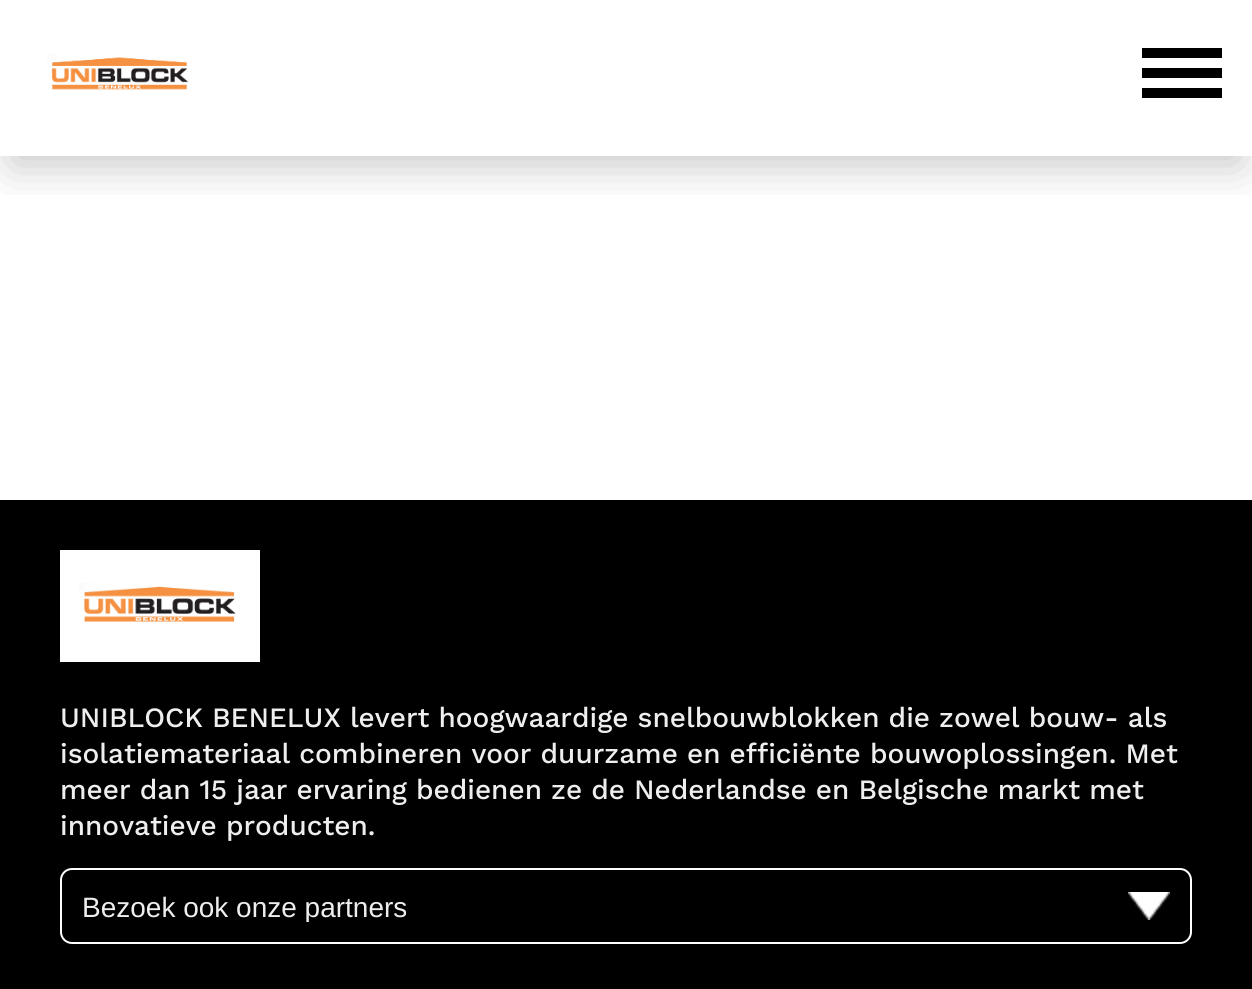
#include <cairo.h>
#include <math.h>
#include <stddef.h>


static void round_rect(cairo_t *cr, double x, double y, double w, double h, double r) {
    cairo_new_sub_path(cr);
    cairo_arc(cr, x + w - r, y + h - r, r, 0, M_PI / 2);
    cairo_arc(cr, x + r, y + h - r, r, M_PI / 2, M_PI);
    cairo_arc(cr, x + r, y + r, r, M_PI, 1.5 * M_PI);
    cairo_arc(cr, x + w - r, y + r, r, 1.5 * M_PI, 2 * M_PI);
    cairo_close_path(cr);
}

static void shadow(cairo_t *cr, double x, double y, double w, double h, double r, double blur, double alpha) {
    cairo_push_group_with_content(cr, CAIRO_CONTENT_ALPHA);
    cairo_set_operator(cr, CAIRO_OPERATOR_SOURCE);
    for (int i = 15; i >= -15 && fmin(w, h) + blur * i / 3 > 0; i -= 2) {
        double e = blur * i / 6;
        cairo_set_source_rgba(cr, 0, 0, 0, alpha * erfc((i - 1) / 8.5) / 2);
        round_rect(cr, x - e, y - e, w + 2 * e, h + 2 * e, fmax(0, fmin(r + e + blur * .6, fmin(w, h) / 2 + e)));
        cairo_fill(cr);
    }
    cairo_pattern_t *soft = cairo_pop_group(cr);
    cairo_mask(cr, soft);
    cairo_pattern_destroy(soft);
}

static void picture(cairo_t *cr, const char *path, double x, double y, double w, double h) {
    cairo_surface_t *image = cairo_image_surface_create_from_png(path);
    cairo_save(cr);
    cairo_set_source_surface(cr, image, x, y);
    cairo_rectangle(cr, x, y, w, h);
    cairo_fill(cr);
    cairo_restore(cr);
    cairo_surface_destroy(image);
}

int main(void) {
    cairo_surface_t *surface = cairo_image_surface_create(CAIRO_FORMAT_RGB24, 1252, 989);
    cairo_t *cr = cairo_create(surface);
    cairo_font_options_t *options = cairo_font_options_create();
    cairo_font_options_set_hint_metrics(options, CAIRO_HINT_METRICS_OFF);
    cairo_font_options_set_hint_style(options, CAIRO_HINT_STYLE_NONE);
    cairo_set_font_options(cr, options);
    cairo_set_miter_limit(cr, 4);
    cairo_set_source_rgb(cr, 1, 1, 1);
    cairo_paint(cr);
    cairo_save(cr);
    cairo_rectangle(cr, 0, 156, 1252, 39);
    cairo_clip(cr);
    cairo_set_source_rgb(cr, 0, 0, 0);
    shadow(cr, 12, 32, 1228, 132, 0, 23, 0.23);
    cairo_restore(cr);
    picture(cr, "img1.png", 47, 54, 142, 36);
    cairo_set_source_rgb(cr, 0, 0, 0);
    cairo_rectangle(cr, 1142, 48, 80, 10);
    cairo_fill(cr);
    cairo_rectangle(cr, 1142, 68, 80, 10);
    cairo_fill(cr);
    cairo_rectangle(cr, 1142, 88, 80, 10);
    cairo_fill(cr);
    cairo_rectangle(cr, 0, 500, 1252, 489);
    cairo_fill(cr);
    picture(cr, "img2.png", 60, 550, 200, 112);
    cairo_select_font_face(cr, "Work Sans Medium", CAIRO_FONT_SLANT_NORMAL, CAIRO_FONT_WEIGHT_NORMAL);
    cairo_set_font_size(cr, 28);
    cairo_set_source_rgb(cr, 0.933, 0.933, 0.933);
    cairo_move_to(cr, 60, 727);
    cairo_show_text(cr, "UNIBLOCK BENELUX levert hoogwaardige snelbouwblokken die zowel bouw- als");
    cairo_move_to(cr, 60, 763);
    cairo_show_text(cr, "isolatiemateriaal combineren voor duurzame en efficiënte bouwoplossingen. Met");
    cairo_move_to(cr, 60, 799);
    cairo_show_text(cr, "meer dan 15 jaar ervaring bedienen ze de Nederlandse en Belgische markt met");
    cairo_move_to(cr, 60, 835);
    cairo_show_text(cr, "innovatieve producten.");
    picture(cr, "img3.png", 1128, 892, 42, 28);
    round_rect(cr, 61, 869, 1130, 74, 11);
    cairo_set_source_rgb(cr, 1, 1, 1);
    cairo_stroke(cr);
    cairo_save(cr);
    cairo_rectangle(cr, 82, 890, 1028, 32);
    cairo_clip(cr);
    cairo_select_font_face(cr, "Liberation Sans", CAIRO_FONT_SLANT_NORMAL, CAIRO_FONT_WEIGHT_NORMAL);
    cairo_set_source_rgb(cr, 0.933, 0.933, 0.933);
    cairo_move_to(cr, 82, 917);
    cairo_show_text(cr, "Bezoek ook onze partners");
    cairo_restore(cr);
    cairo_surface_write_to_png(surface, "page.png");
    cairo_font_options_destroy(options);
    cairo_destroy(cr);
    cairo_surface_destroy(surface);
    return 0;
}
